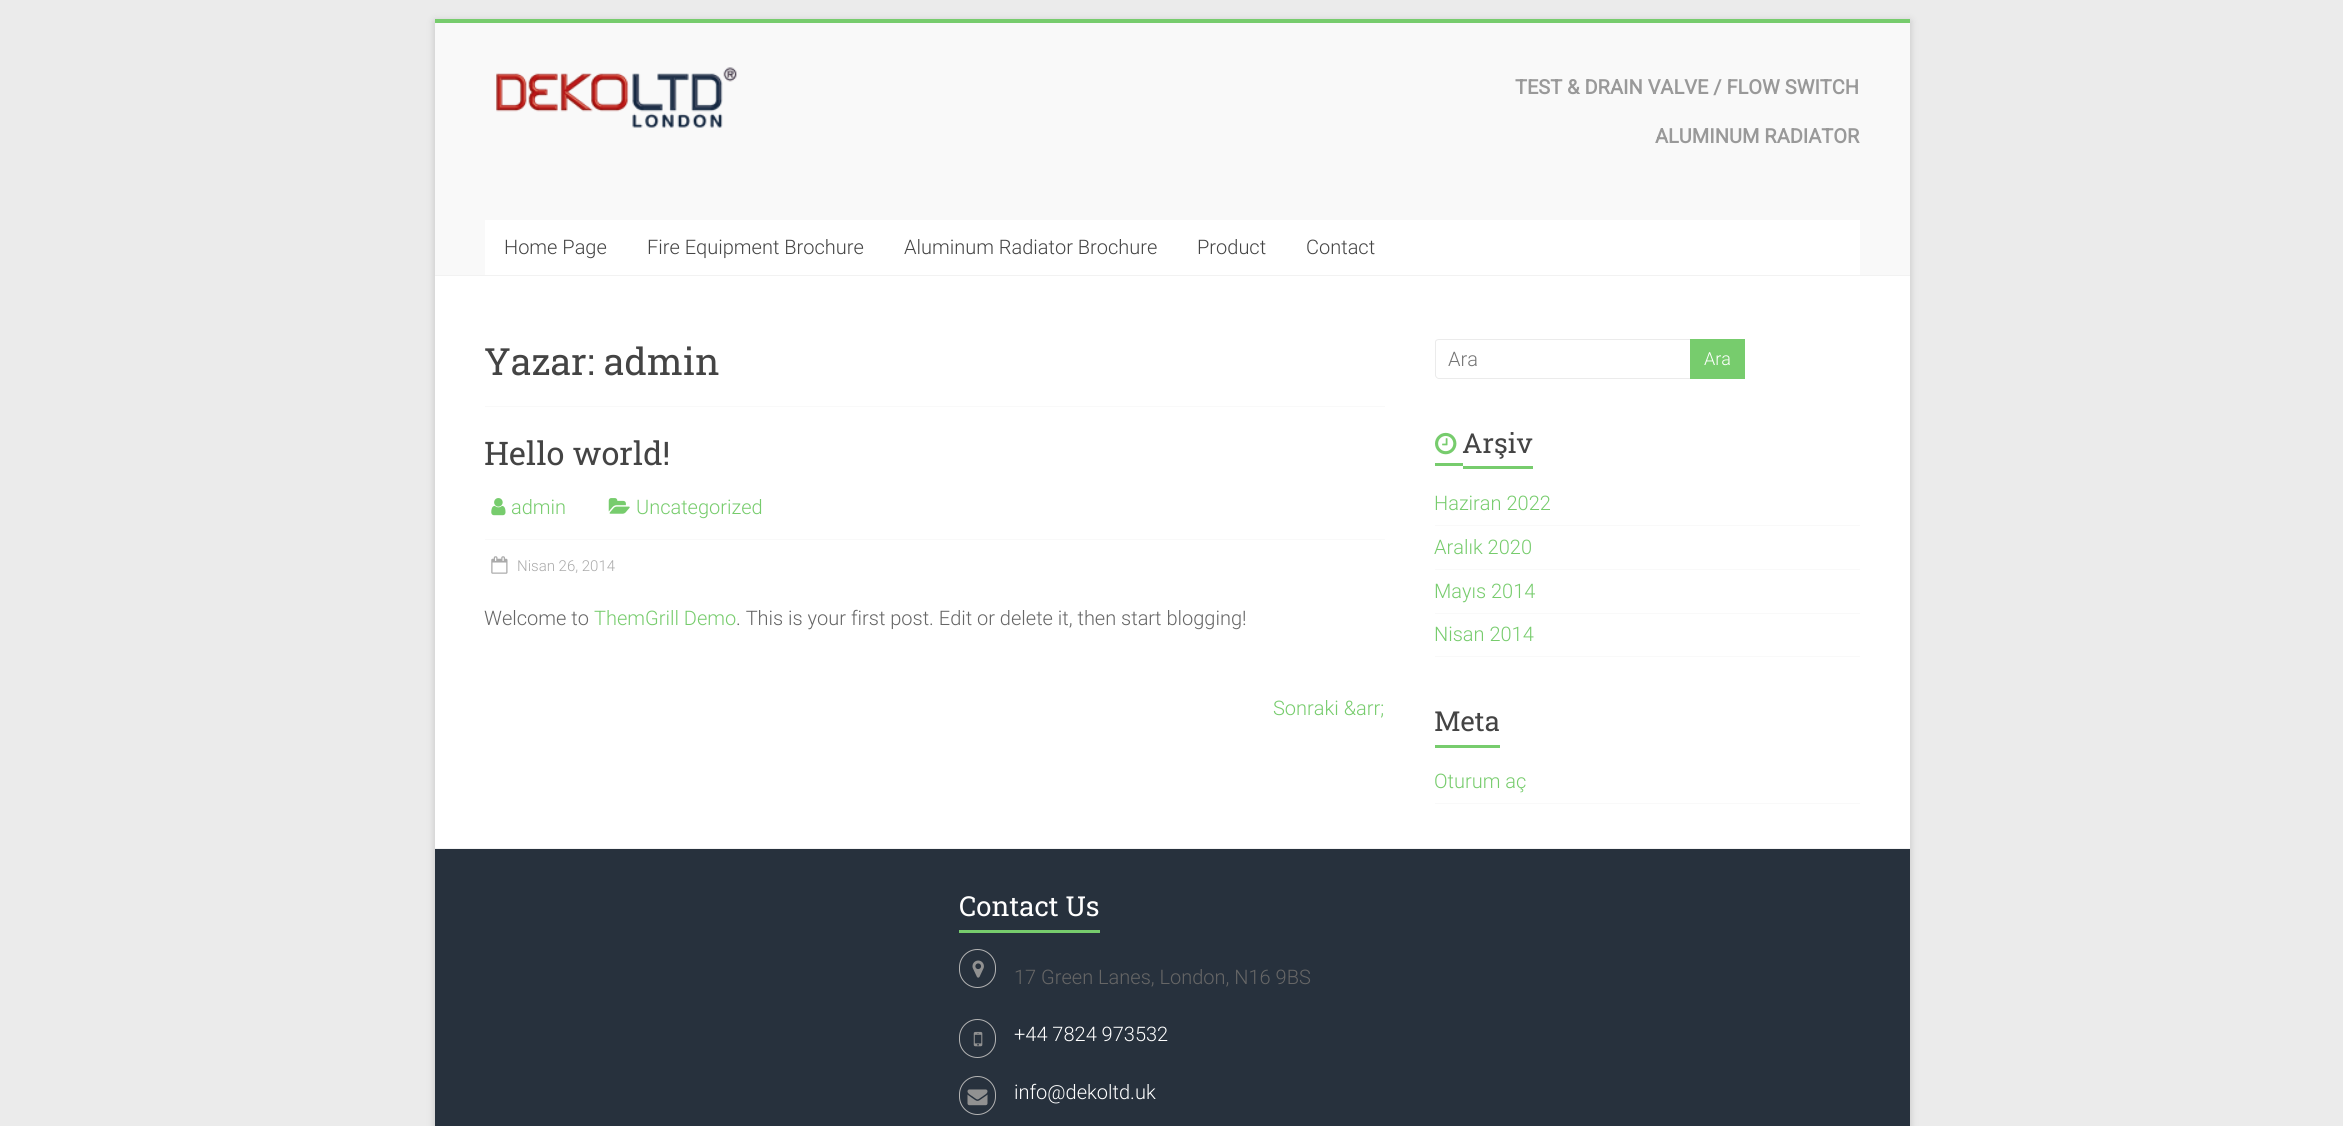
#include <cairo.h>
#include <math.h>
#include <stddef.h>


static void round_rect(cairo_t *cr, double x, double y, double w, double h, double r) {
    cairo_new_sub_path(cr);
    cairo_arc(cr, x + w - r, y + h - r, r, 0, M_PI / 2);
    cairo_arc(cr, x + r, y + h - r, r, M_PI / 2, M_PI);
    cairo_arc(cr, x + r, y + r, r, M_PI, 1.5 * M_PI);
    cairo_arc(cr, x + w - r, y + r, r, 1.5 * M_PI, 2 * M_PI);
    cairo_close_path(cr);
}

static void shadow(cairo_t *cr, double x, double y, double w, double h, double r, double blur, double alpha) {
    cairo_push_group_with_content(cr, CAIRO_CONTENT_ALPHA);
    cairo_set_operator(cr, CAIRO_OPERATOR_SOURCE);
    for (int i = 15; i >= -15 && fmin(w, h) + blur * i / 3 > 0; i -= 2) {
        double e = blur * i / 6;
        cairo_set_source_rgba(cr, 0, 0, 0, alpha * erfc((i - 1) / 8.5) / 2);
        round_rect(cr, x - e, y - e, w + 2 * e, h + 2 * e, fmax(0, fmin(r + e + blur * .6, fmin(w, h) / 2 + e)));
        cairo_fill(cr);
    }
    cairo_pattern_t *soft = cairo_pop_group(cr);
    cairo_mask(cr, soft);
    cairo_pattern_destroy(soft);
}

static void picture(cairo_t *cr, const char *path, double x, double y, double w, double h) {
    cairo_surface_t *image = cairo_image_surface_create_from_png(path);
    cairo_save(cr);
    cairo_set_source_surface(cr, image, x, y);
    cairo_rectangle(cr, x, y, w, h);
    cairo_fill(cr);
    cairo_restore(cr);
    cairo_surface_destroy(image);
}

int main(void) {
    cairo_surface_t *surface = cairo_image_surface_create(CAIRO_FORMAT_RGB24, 2343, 1126);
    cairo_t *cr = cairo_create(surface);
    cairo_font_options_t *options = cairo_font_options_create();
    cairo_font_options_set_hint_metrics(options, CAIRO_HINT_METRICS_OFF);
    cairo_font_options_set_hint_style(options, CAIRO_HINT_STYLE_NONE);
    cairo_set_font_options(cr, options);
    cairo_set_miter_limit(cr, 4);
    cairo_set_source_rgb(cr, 0.918, 0.918, 0.918);
    cairo_paint(cr);
    cairo_set_source_rgb(cr, 0.392, 0.392, 0.392);
    shadow(cr, 435, 21, 1475, 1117, 0, 4, 0.3);
    cairo_set_source_rgb(cr, 1, 1, 1);
    cairo_rectangle(cr, 435, 276, 1475, 572);
    cairo_fill(cr);
    cairo_set_source_rgb(cr, 0.467, 0.8, 0.427);
    cairo_rectangle(cr, 435, 19, 1475, 4);
    cairo_fill(cr);
    cairo_set_source_rgb(cr, 0.973, 0.973, 0.973);
    cairo_rectangle(cr, 435, 23, 1475, 252);
    cairo_fill(cr);
    cairo_set_source_rgb(cr, 0.949, 0.949, 0.949);
    cairo_rectangle(cr, 435, 275, 1475, 1);
    cairo_fill(cr);
    picture(cr, "img1.png", 496, 67, 241, 61);
    cairo_select_font_face(cr, "Roboto", CAIRO_FONT_SLANT_NORMAL, CAIRO_FONT_WEIGHT_BOLD);
    cairo_set_font_size(cr, 20);
    cairo_set_source_rgb(cr, 0.6, 0.6, 0.6);
    cairo_move_to(cr, 1515, 94);
    cairo_show_text(cr, "TEST & DRAIN VALVE / FLOW SWITCH");
    cairo_move_to(cr, 1655, 143);
    cairo_show_text(cr, "ALUMINUM RADIATOR");
    cairo_set_source_rgb(cr, 1, 1, 1);
    cairo_rectangle(cr, 485, 220, 1375, 55);
    cairo_fill(cr);
    cairo_select_font_face(cr, "Roboto Light", CAIRO_FONT_SLANT_NORMAL, CAIRO_FONT_WEIGHT_NORMAL);
    cairo_set_source_rgb(cr, 0.267, 0.267, 0.267);
    cairo_move_to(cr, 504, 254);
    cairo_show_text(cr, "Home Page");
    cairo_move_to(cr, 647, 254);
    cairo_show_text(cr, "Fire Equipment Brochure");
    cairo_move_to(cr, 904, 254);
    cairo_show_text(cr, "Aluminum Radiator Brochure");
    cairo_move_to(cr, 1197, 254);
    cairo_show_text(cr, "Product");
    cairo_move_to(cr, 1306, 254);
    cairo_show_text(cr, "Contact");
    cairo_set_source_rgb(cr, 0.973, 0.973, 0.973);
    cairo_rectangle(cr, 485, 406, 900, 1);
    cairo_fill(cr);
    cairo_select_font_face(cr, "Roboto Slab", CAIRO_FONT_SLANT_NORMAL, CAIRO_FONT_WEIGHT_NORMAL);
    cairo_set_font_size(cr, 37.5);
    cairo_set_source_rgb(cr, 0.267, 0.267, 0.267);
    cairo_move_to(cr, 484, 375);
    cairo_show_text(cr, "Yazar: admin");
    cairo_set_font_size(cr, 32.5);
    cairo_move_to(cr, 484, 465);
    cairo_show_text(cr, "Hello world!");
    picture(cr, "img2.png", 491, 498, 15, 18);
    cairo_select_font_face(cr, "Roboto Light", CAIRO_FONT_SLANT_NORMAL, CAIRO_FONT_WEIGHT_NORMAL);
    cairo_set_font_size(cr, 20);
    cairo_set_source_rgb(cr, 0.467, 0.8, 0.427);
    cairo_move_to(cr, 511, 514);
    cairo_show_text(cr, "admin");
    picture(cr, "img3.png", 608, 498, 22, 16);
    cairo_move_to(cr, 636, 514);
    cairo_show_text(cr, "Uncategorized");
    cairo_set_source_rgb(cr, 0.973, 0.973, 0.973);
    cairo_rectangle(cr, 485, 539, 900, 1);
    cairo_fill(cr);
    picture(cr, "img4.png", 491, 556, 17, 18);
    cairo_set_font_size(cr, 15);
    cairo_set_source_rgb(cr, 0.667, 0.667, 0.667);
    cairo_move_to(cr, 517, 571);
    cairo_show_text(cr, "Nisan 26, 2014");
    cairo_set_font_size(cr, 20);
    cairo_set_source_rgb(cr, 0.4, 0.4, 0.4);
    cairo_move_to(cr, 484, 625);
    cairo_show_text(cr, "Welcome to");
    cairo_set_source_rgb(cr, 0.467, 0.8, 0.427);
    cairo_move_to(cr, 594, 625);
    cairo_show_text(cr, "ThemGrill Demo");
    cairo_set_source_rgb(cr, 0.4, 0.4, 0.4);
    cairo_move_to(cr, 736, 625);
    cairo_show_text(cr, ". This is your first post. Edit or delete it, then start blogging!");
    cairo_set_source_rgb(cr, 0.467, 0.8, 0.427);
    cairo_move_to(cr, 1273, 715);
    cairo_show_text(cr, "Sonraki &arr;");
    cairo_set_source_rgb(cr, 0.918, 0.918, 0.918);
    cairo_set_fill_rule(cr, CAIRO_FILL_RULE_EVEN_ODD);
    cairo_new_path(cr);
    cairo_move_to(cr, 1439, 339);
    cairo_line_to(cr, 1690, 339);
    cairo_line_to(cr, 1690, 379);
    cairo_line_to(cr, 1439, 379);
    cairo_curve_to(cr, 1437, 379, 1435, 377, 1435, 375);
    cairo_line_to(cr, 1435, 342);
    cairo_curve_to(cr, 1435, 340, 1437, 339, 1439, 339);
    cairo_close_path(cr);
    cairo_move_to(cr, 1439, 340);
    cairo_line_to(cr, 1690, 340);
    cairo_line_to(cr, 1690, 378);
    cairo_line_to(cr, 1439, 378);
    cairo_curve_to(cr, 1437, 378, 1436, 376, 1436, 375);
    cairo_line_to(cr, 1436, 342);
    cairo_curve_to(cr, 1436, 341, 1437, 340, 1439, 340);
    cairo_close_path(cr);
    cairo_fill(cr);
    cairo_set_source_rgb(cr, 0.459, 0.459, 0.459);
    cairo_move_to(cr, 1448, 366);
    cairo_show_text(cr, "Ara");
    cairo_set_source_rgb(cr, 0.467, 0.8, 0.427);
    cairo_rectangle(cr, 1690, 339, 55, 40);
    cairo_fill(cr);
    cairo_set_font_size(cr, 18);
    cairo_set_source_rgb(cr, 1, 1, 1);
    cairo_move_to(cr, 1704, 365);
    cairo_show_text(cr, "Ara");
    picture(cr, "img5.png", 1435, 432, 22, 23);
    cairo_select_font_face(cr, "Roboto Slab", CAIRO_FONT_SLANT_NORMAL, CAIRO_FONT_WEIGHT_NORMAL);
    cairo_set_font_size(cr, 27.5);
    cairo_set_source_rgb(cr, 0.267, 0.267, 0.267);
    cairo_move_to(cr, 1462, 453);
    cairo_show_text(cr, "Arşiv");
    cairo_set_source_rgb(cr, 0.467, 0.8, 0.427);
    cairo_rectangle(cr, 1435, 463, 28, 3);
    cairo_fill(cr);
    cairo_rectangle(cr, 1463, 466, 70, 3);
    cairo_fill(cr);
    cairo_set_source_rgb(cr, 0.973, 0.973, 0.973);
    cairo_rectangle(cr, 1435, 525, 425, 1);
    cairo_fill(cr);
    cairo_select_font_face(cr, "Roboto Light", CAIRO_FONT_SLANT_NORMAL, CAIRO_FONT_WEIGHT_NORMAL);
    cairo_set_font_size(cr, 20);
    cairo_set_source_rgb(cr, 0.467, 0.8, 0.427);
    cairo_move_to(cr, 1434, 510);
    cairo_show_text(cr, "Haziran 2022");
    cairo_set_source_rgb(cr, 0.973, 0.973, 0.973);
    cairo_rectangle(cr, 1435, 569, 425, 1);
    cairo_fill(cr);
    cairo_set_source_rgb(cr, 0.467, 0.8, 0.427);
    cairo_move_to(cr, 1434, 554);
    cairo_show_text(cr, "Aralık 2020");
    cairo_set_source_rgb(cr, 0.973, 0.973, 0.973);
    cairo_rectangle(cr, 1435, 613, 425, 1);
    cairo_fill(cr);
    cairo_set_source_rgb(cr, 0.467, 0.8, 0.427);
    cairo_move_to(cr, 1434, 598);
    cairo_show_text(cr, "Mayıs 2014");
    cairo_set_source_rgb(cr, 0.973, 0.973, 0.973);
    cairo_rectangle(cr, 1435, 656, 425, 1);
    cairo_fill(cr);
    cairo_set_source_rgb(cr, 0.467, 0.8, 0.427);
    cairo_move_to(cr, 1434, 641);
    cairo_show_text(cr, "Nisan 2014");
    cairo_select_font_face(cr, "Roboto Slab", CAIRO_FONT_SLANT_NORMAL, CAIRO_FONT_WEIGHT_NORMAL);
    cairo_set_font_size(cr, 27.5);
    cairo_set_source_rgb(cr, 0.267, 0.267, 0.267);
    cairo_move_to(cr, 1434, 731);
    cairo_show_text(cr, "Meta");
    cairo_set_source_rgb(cr, 0.467, 0.8, 0.427);
    cairo_rectangle(cr, 1435, 745, 65, 3);
    cairo_fill(cr);
    cairo_set_source_rgb(cr, 0.973, 0.973, 0.973);
    cairo_rectangle(cr, 1435, 803, 425, 1);
    cairo_fill(cr);
    cairo_select_font_face(cr, "Roboto Light", CAIRO_FONT_SLANT_NORMAL, CAIRO_FONT_WEIGHT_NORMAL);
    cairo_set_font_size(cr, 20);
    cairo_set_source_rgb(cr, 0.467, 0.8, 0.427);
    cairo_move_to(cr, 1434, 788);
    cairo_show_text(cr, "Oturum aç");
    cairo_set_source_rgb(cr, 0.153, 0.192, 0.239);
    cairo_rectangle(cr, 435, 849, 1475, 277);
    cairo_fill(cr);
    cairo_set_source_rgb(cr, 0.949, 0.949, 0.949);
    cairo_rectangle(cr, 435, 848, 1475, 1);
    cairo_fill(cr);
    cairo_select_font_face(cr, "Roboto Slab", CAIRO_FONT_SLANT_NORMAL, CAIRO_FONT_WEIGHT_NORMAL);
    cairo_set_font_size(cr, 27.5);
    cairo_set_source_rgb(cr, 1, 1, 1);
    cairo_move_to(cr, 959, 916);
    cairo_show_text(cr, "Contact Us");
    cairo_set_source_rgb(cr, 0.467, 0.8, 0.427);
    cairo_rectangle(cr, 959, 930, 141, 3);
    cairo_fill(cr);
    round_rect(cr, 959.5, 949.5, 36, 38, 18);
    cairo_set_source_rgb(cr, 0.702, 0.702, 0.702);
    cairo_set_line_width(cr, 1);
    cairo_stroke(cr);
    picture(cr, "img6.png", 972, 960, 12, 18);
    cairo_select_font_face(cr, "Roboto Light", CAIRO_FONT_SLANT_NORMAL, CAIRO_FONT_WEIGHT_NORMAL);
    cairo_set_font_size(cr, 20);
    cairo_set_source_rgb(cr, 0.4, 0.4, 0.4);
    cairo_move_to(cr, 1014, 984);
    cairo_show_text(cr, "17 Green Lanes, London, N16 9BS");
    round_rect(cr, 959.5, 1019.5, 36, 38, 18);
    cairo_set_source_rgb(cr, 0.702, 0.702, 0.702);
    cairo_stroke(cr);
    picture(cr, "img7.png", 973, 1031, 10, 16);
    cairo_set_source_rgb(cr, 1, 1, 1);
    cairo_move_to(cr, 1014, 1041);
    cairo_show_text(cr, "+44 7824 973532");
    round_rect(cr, 959.5, 1076.5, 36, 38, 18);
    cairo_set_source_rgb(cr, 0.702, 0.702, 0.702);
    cairo_stroke(cr);
    picture(cr, "img8.png", 967, 1089, 21, 17);
    cairo_set_source_rgb(cr, 1, 1, 1);
    cairo_move_to(cr, 1014, 1099);
    cairo_show_text(cr, "info@dekoltd.uk");
    cairo_surface_write_to_png(surface, "page.png");
    cairo_font_options_destroy(options);
    cairo_destroy(cr);
    cairo_surface_destroy(surface);
    return 0;
}
